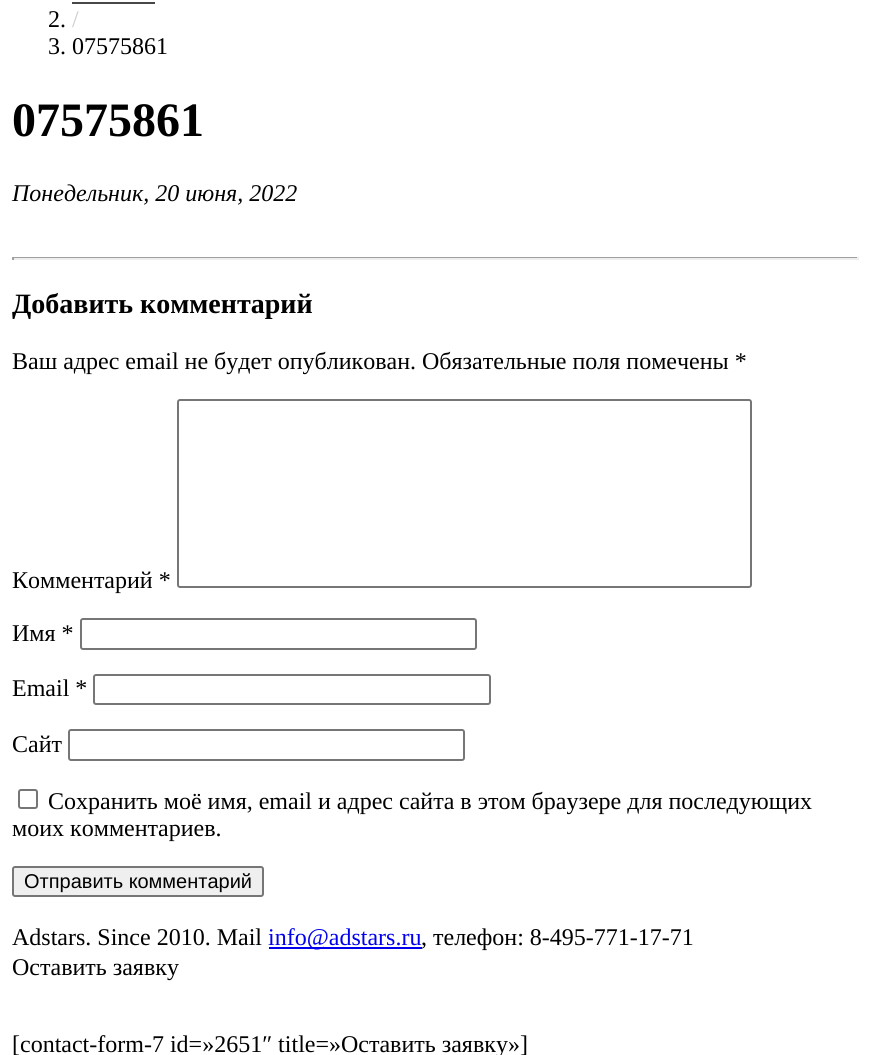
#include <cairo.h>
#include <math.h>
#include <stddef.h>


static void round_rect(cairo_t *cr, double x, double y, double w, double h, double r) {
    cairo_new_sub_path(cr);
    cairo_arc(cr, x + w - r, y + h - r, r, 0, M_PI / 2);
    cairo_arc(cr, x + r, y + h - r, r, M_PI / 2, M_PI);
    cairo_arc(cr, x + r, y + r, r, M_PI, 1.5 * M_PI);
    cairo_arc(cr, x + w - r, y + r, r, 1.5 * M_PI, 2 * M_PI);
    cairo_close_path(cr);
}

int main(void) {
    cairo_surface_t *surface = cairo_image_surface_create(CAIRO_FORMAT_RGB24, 869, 1055);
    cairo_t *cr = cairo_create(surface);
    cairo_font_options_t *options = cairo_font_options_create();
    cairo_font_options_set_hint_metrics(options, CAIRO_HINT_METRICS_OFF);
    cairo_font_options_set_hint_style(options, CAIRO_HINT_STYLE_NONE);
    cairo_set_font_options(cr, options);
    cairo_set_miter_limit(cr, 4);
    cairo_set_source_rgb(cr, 1, 1, 1);
    cairo_paint(cr);
    cairo_set_source_rgb(cr, 0.278, 0.278, 0.278);
    cairo_rectangle(cr, 72, 2, 83, 2);
    cairo_fill(cr);
    cairo_select_font_face(cr, "Liberation Serif", CAIRO_FONT_SLANT_NORMAL, CAIRO_FONT_WEIGHT_NORMAL);
    cairo_set_font_size(cr, 24);
    cairo_set_source_rgb(cr, 0, 0, 0);
    cairo_move_to(cr, 48, 27);
    cairo_show_text(cr, "2.");
    cairo_set_source_rgb(cr, 0.8, 0.8, 0.8);
    cairo_move_to(cr, 72, 27);
    cairo_show_text(cr, "/");
    cairo_set_source_rgb(cr, 0, 0, 0);
    cairo_move_to(cr, 48, 54);
    cairo_show_text(cr, "3. 07575861");
    cairo_select_font_face(cr, "Liberation Serif", CAIRO_FONT_SLANT_NORMAL, CAIRO_FONT_WEIGHT_BOLD);
    cairo_set_font_size(cr, 48);
    cairo_move_to(cr, 12, 136);
    cairo_show_text(cr, "07575861");
    cairo_select_font_face(cr, "Liberation Serif", CAIRO_FONT_SLANT_ITALIC, CAIRO_FONT_WEIGHT_NORMAL);
    cairo_set_font_size(cr, 24);
    cairo_move_to(cr, 12, 201);
    cairo_show_text(cr, "Понедельник, 20 июня, 2022");
    cairo_set_source_rgb(cr, 0.624, 0.624, 0.624);
    cairo_rectangle(cr, 12, 257, 846, 1);
    cairo_fill(cr);
    cairo_set_source_rgb(cr, 0.933, 0.933, 0.933);
    cairo_rectangle(cr, 857, 257, 2, 3);
    cairo_fill(cr);
    cairo_rectangle(cr, 12, 258, 846, 2);
    cairo_fill(cr);
    cairo_set_source_rgb(cr, 0.624, 0.624, 0.624);
    cairo_rectangle(cr, 12, 257, 2, 3);
    cairo_fill(cr);
    cairo_select_font_face(cr, "Liberation Serif", CAIRO_FONT_SLANT_NORMAL, CAIRO_FONT_WEIGHT_BOLD);
    cairo_set_font_size(cr, 28);
    cairo_set_source_rgb(cr, 0, 0, 0);
    cairo_move_to(cr, 12, 313);
    cairo_show_text(cr, "Добавить комментарий");
    cairo_select_font_face(cr, "Liberation Serif", CAIRO_FONT_SLANT_NORMAL, CAIRO_FONT_WEIGHT_NORMAL);
    cairo_set_font_size(cr, 24);
    cairo_move_to(cr, 12, 369);
    cairo_show_text(cr, "Ваш адрес email не будет опубликован. Обязательные поля помечены *");
    cairo_move_to(cr, 12, 588);
    cairo_show_text(cr, "Комментарий *");
    round_rect(cr, 178, 400, 573, 187, 2);
    cairo_set_source_rgb(cr, 0.463, 0.463, 0.463);
    cairo_stroke(cr);
    cairo_set_source_rgb(cr, 0, 0, 0);
    cairo_move_to(cr, 12, 641);
    cairo_show_text(cr, "Имя *");
    round_rect(cr, 81, 619, 395, 30, 2);
    cairo_set_source_rgb(cr, 0.463, 0.463, 0.463);
    cairo_stroke(cr);
    cairo_set_source_rgb(cr, 0, 0, 0);
    cairo_move_to(cr, 12, 696);
    cairo_show_text(cr, "Email *");
    round_rect(cr, 94, 675, 396, 29, 2);
    cairo_set_source_rgb(cr, 0.463, 0.463, 0.463);
    cairo_stroke(cr);
    cairo_set_source_rgb(cr, 0, 0, 0);
    cairo_move_to(cr, 12, 752);
    cairo_show_text(cr, "Сайт");
    round_rect(cr, 69, 730, 395, 30, 2);
    cairo_set_source_rgb(cr, 0.463, 0.463, 0.463);
    cairo_stroke(cr);
    round_rect(cr, 19, 790, 18, 18, 2);
    cairo_stroke(cr);
    cairo_set_source_rgb(cr, 0, 0, 0);
    cairo_move_to(cr, 48, 809);
    cairo_show_text(cr, "Сохранить моё имя, email и адрес сайта в этом браузере для последующих");
    cairo_move_to(cr, 12, 836);
    cairo_show_text(cr, "моих комментариев.");
    cairo_set_source_rgb(cr, 0.937, 0.937, 0.937);
    round_rect(cr, 13, 867, 250, 29, 2);
    cairo_fill_preserve(cr);
    cairo_set_source_rgb(cr, 0.463, 0.463, 0.463);
    cairo_stroke(cr);
    cairo_select_font_face(cr, "Liberation Sans", CAIRO_FONT_SLANT_NORMAL, CAIRO_FONT_WEIGHT_NORMAL);
    cairo_set_font_size(cr, 20);
    cairo_set_source_rgb(cr, 0, 0, 0);
    cairo_move_to(cr, 24, 888);
    cairo_show_text(cr, "Отправить комментарий");
    cairo_select_font_face(cr, "Liberation Serif", CAIRO_FONT_SLANT_NORMAL, CAIRO_FONT_WEIGHT_NORMAL);
    cairo_set_font_size(cr, 24);
    cairo_move_to(cr, 12, 945);
    cairo_show_text(cr, "Adstars. Since 2010. Mail");
    cairo_set_source_rgb(cr, 0, 0, 0.933);
    cairo_rectangle(cr, 269, 947, 153, 2);
    cairo_fill(cr);
    cairo_move_to(cr, 268, 945);
    cairo_show_text(cr, "info@adstars.ru");
    cairo_set_source_rgb(cr, 0, 0, 0);
    cairo_move_to(cr, 421, 945);
    cairo_show_text(cr, ", телефон: 8-495-771-17-71");
    cairo_move_to(cr, 12, 975);
    cairo_show_text(cr, "Оставить заявку");
    cairo_move_to(cr, 12, 1052);
    cairo_show_text(cr, "[contact-form-7 id=»2651″ title=»Оставить заявку»]");
    cairo_surface_write_to_png(surface, "page.png");
    cairo_font_options_destroy(options);
    cairo_destroy(cr);
    cairo_surface_destroy(surface);
    return 0;
}
